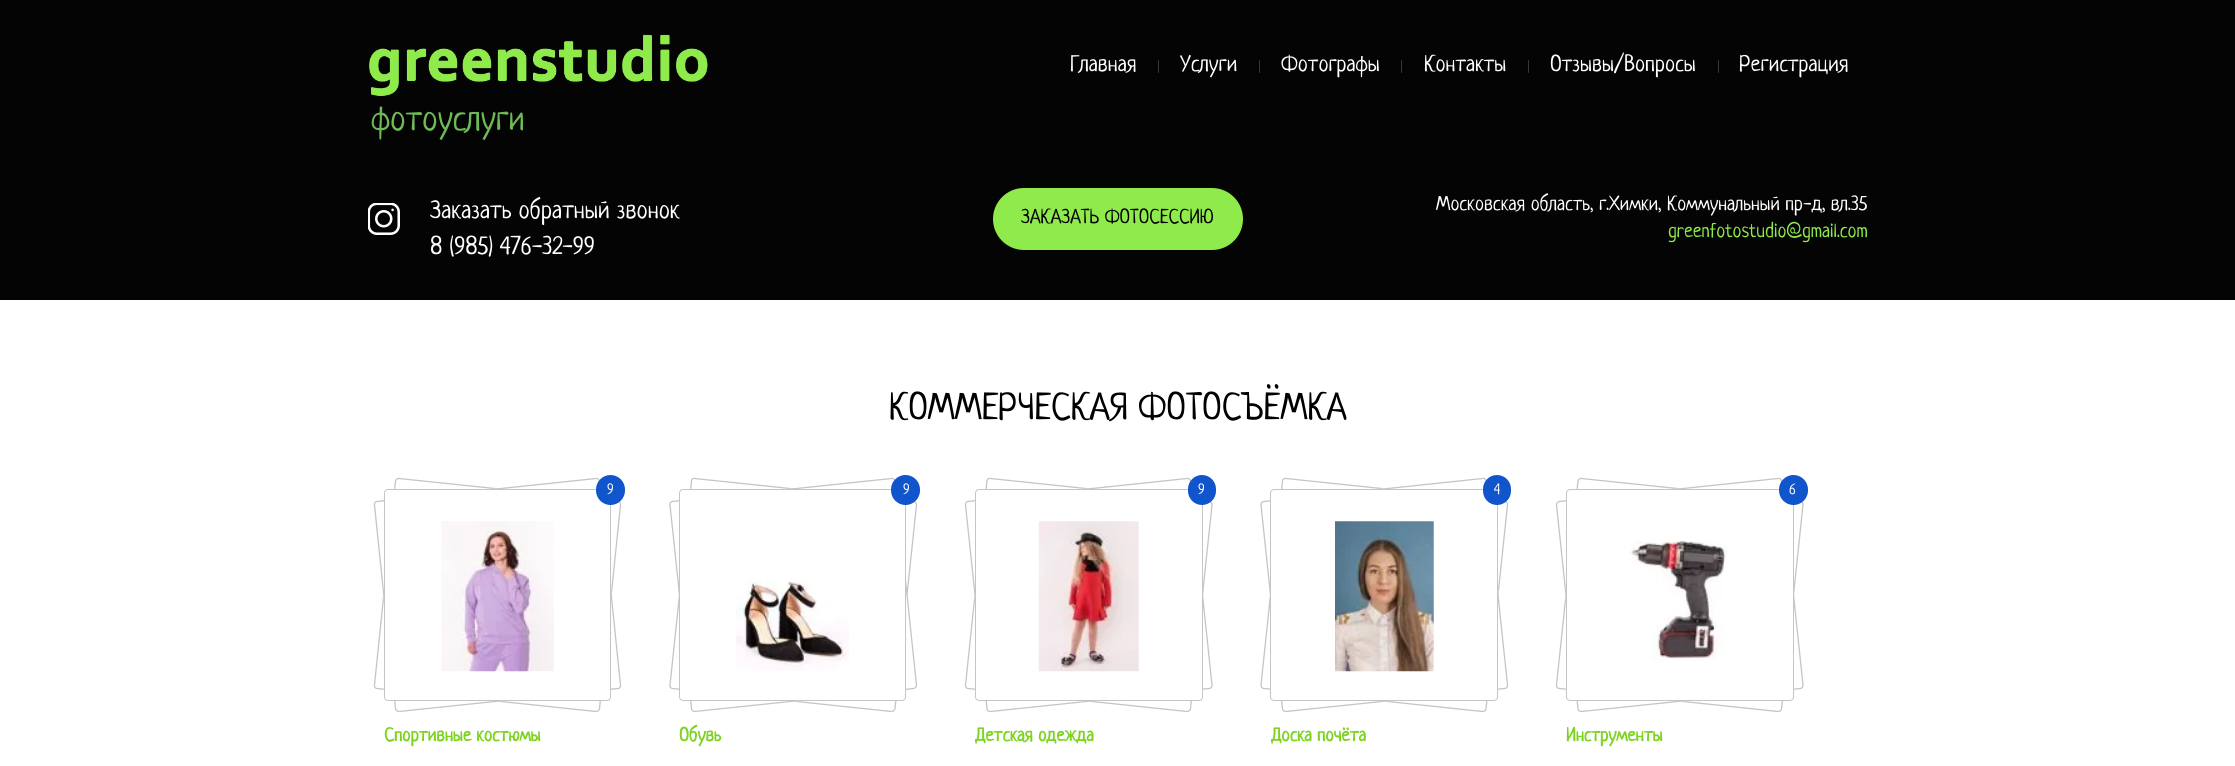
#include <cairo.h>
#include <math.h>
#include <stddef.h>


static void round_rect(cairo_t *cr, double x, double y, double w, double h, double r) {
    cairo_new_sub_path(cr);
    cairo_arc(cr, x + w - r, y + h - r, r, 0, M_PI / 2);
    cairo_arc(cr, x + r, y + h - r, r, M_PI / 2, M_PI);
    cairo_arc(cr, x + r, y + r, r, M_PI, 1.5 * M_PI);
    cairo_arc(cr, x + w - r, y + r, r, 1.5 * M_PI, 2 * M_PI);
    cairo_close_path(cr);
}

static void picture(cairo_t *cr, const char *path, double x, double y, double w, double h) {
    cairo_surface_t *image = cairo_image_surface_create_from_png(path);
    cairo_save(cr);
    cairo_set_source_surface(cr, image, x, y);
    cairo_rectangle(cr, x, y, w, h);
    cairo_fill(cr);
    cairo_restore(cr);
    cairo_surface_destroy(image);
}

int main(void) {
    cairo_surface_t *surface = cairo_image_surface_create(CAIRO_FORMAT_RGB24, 2235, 766);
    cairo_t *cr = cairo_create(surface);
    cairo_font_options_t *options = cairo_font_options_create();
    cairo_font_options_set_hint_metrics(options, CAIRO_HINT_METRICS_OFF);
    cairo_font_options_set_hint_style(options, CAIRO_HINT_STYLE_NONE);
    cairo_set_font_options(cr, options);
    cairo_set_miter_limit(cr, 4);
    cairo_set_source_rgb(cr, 1, 1, 1);
    cairo_paint(cr);
    cairo_set_source_rgb(cr, 0.016, 0.016, 0.016);
    cairo_rectangle(cr, 0, 0, 2235, 300);
    cairo_fill(cr);
    cairo_select_font_face(cr, "Neucha", CAIRO_FONT_SLANT_NORMAL, CAIRO_FONT_WEIGHT_NORMAL);
    cairo_set_font_size(cr, 22.5);
    cairo_set_source_rgb(cr, 1, 1, 1);
    cairo_move_to(cr, 1070, 71);
    cairo_show_text(cr, "Главная");
    cairo_set_source_rgb(cr, 0.212, 0.212, 0.212);
    round_rect(cr, 1158, 60, 1, 13, 0.5);
    cairo_fill(cr);
    cairo_set_source_rgb(cr, 1, 1, 1);
    cairo_move_to(cr, 1180, 71);
    cairo_show_text(cr, "Услуги");
    cairo_set_source_rgb(cr, 0.212, 0.212, 0.212);
    round_rect(cr, 1259, 60, 1, 13, 0.5);
    cairo_fill(cr);
    cairo_set_source_rgb(cr, 1, 1, 1);
    cairo_move_to(cr, 1281, 71);
    cairo_show_text(cr, "Фотографы");
    cairo_set_source_rgb(cr, 0.212, 0.212, 0.212);
    round_rect(cr, 1401, 60, 1, 13, 0.5);
    cairo_fill(cr);
    cairo_set_source_rgb(cr, 1, 1, 1);
    cairo_move_to(cr, 1424, 71);
    cairo_show_text(cr, "Контакты");
    cairo_set_source_rgb(cr, 0.212, 0.212, 0.212);
    round_rect(cr, 1528, 60, 1, 13, 0.5);
    cairo_fill(cr);
    cairo_set_source_rgb(cr, 1, 1, 1);
    cairo_move_to(cr, 1550, 71);
    cairo_show_text(cr, "Отзывы/Вопросы");
    cairo_set_source_rgb(cr, 0.212, 0.212, 0.212);
    round_rect(cr, 1718, 60, 1, 13, 0.5);
    cairo_fill(cr);
    cairo_set_source_rgb(cr, 1, 1, 1);
    cairo_move_to(cr, 1739, 71);
    cairo_show_text(cr, "Регистрация");
    picture(cr, "img1.png", 369, 34, 339, 63);
    cairo_set_font_size(cr, 35);
    cairo_set_source_rgb(cr, 0.431, 0.729, 0.337);
    cairo_move_to(cr, 371, 130);
    cairo_show_text(cr, "фотоуслуги");
    picture(cr, "img2.png", 368, 203, 32, 32);
    cairo_set_font_size(cr, 25);
    cairo_set_source_rgb(cr, 1, 1, 1);
    cairo_move_to(cr, 430, 218);
    cairo_show_text(cr, "Заказать обратный звонок");
    cairo_move_to(cr, 430, 254);
    cairo_show_text(cr, "8 (985) 476-32-99");
    cairo_set_source_rgb(cr, 0.561, 0.918, 0.298);
    round_rect(cr, 993, 188, 250, 62, 31);
    cairo_fill(cr);
    cairo_set_font_size(cr, 20);
    cairo_set_source_rgb(cr, 0, 0, 0);
    cairo_move_to(cr, 1021, 223);
    cairo_show_text(cr, "ЗАКАЗАТЬ ФОТОСЕССИЮ");
    cairo_set_source_rgb(cr, 1, 1, 1);
    cairo_move_to(cr, 1436, 210);
    cairo_show_text(cr, "Московская область, г.Химки, Коммунальный пр-д, вл.35");
    cairo_set_source_rgb(cr, 0.561, 0.918, 0.298);
    cairo_move_to(cr, 1668, 237);
    cairo_show_text(cr, "greenfotostudio@gmail.com");
    cairo_set_font_size(cr, 37.5);
    cairo_set_source_rgb(cr, 0, 0, 0);
    cairo_move_to(cr, 889, 419);
    cairo_show_text(cr, "КОММЕРЧЕСКАЯ ФОТОСЪЁМКА");
    cairo_new_path(cr);
    cairo_move_to(cr, 399, 478.5);
    cairo_line_to(cr, 618, 501.5);
    cairo_curve_to(cr, 619.5, 501.5, 621, 503, 620.5, 505);
    cairo_line_to(cr, 599.5, 708.5);
    cairo_curve_to(cr, 599, 710.5, 597.5, 711.5, 596, 711.5);
    cairo_line_to(cr, 377, 688.5);
    cairo_curve_to(cr, 375.5, 688.5, 374, 687, 374.5, 685);
    cairo_line_to(cr, 395.5, 481);
    cairo_curve_to(cr, 396, 479.5, 397.5, 478, 399, 478.5);
    cairo_close_path(cr);
    cairo_set_source_rgb(cr, 0.773, 0.773, 0.773);
    cairo_set_line_width(cr, 1.3);
    cairo_stroke(cr);
    cairo_set_source_rgb(cr, 1, 1, 1);
    cairo_new_path(cr);
    cairo_move_to(cr, 377, 501);
    cairo_line_to(cr, 596, 478);
    cairo_curve_to(cr, 598, 478, 600, 479, 600, 481);
    cairo_line_to(cr, 621, 685);
    cairo_curve_to(cr, 622, 687, 620, 689, 618, 689);
    cairo_line_to(cr, 399, 712);
    cairo_curve_to(cr, 397, 712, 395, 711, 395, 709);
    cairo_line_to(cr, 374, 505);
    cairo_curve_to(cr, 373, 503, 375, 501, 377, 501);
    cairo_close_path(cr);
    cairo_fill(cr);
    cairo_new_path(cr);
    cairo_move_to(cr, 377, 501.5);
    cairo_line_to(cr, 596, 478.5);
    cairo_curve_to(cr, 597.5, 478, 599, 479.5, 599.5, 481);
    cairo_line_to(cr, 620.5, 685);
    cairo_curve_to(cr, 621, 687, 619.5, 688.5, 618, 688.5);
    cairo_line_to(cr, 399, 711.5);
    cairo_curve_to(cr, 397.5, 711.5, 396, 710.5, 395.5, 708.5);
    cairo_line_to(cr, 374.5, 505);
    cairo_curve_to(cr, 374, 503, 375.5, 501.5, 377, 501.5);
    cairo_close_path(cr);
    cairo_set_source_rgb(cr, 0.773, 0.773, 0.773);
    cairo_stroke(cr);
    cairo_set_source_rgb(cr, 1, 1, 1);
    round_rect(cr, 384.5, 489.5, 226, 211, 3.5);
    cairo_fill_preserve(cr);
    cairo_set_source_rgb(cr, 0.773, 0.773, 0.773);
    cairo_set_line_width(cr, 1);
    cairo_stroke(cr);
    cairo_set_source_rgb(cr, 0.067, 0.333, 0.8);
    round_rect(cr, 596, 475, 29, 30, 14.5);
    cairo_fill(cr);
    cairo_set_font_size(cr, 15);
    cairo_set_source_rgb(cr, 1, 1, 1);
    cairo_move_to(cr, 607, 494);
    cairo_show_text(cr, "9");
    picture(cr, "img3.png", 441, 521, 113, 151);
    cairo_select_font_face(cr, "Neucha", CAIRO_FONT_SLANT_NORMAL, CAIRO_FONT_WEIGHT_BOLD);
    cairo_set_font_size(cr, 18.75);
    cairo_set_source_rgb(cr, 0.494, 0.827, 0.129);
    cairo_move_to(cr, 384, 741);
    cairo_show_text(cr, "Спортивные костюмы");
    cairo_new_path(cr);
    cairo_move_to(cr, 694.5, 478.5);
    cairo_line_to(cr, 913.5, 501.5);
    cairo_curve_to(cr, 915, 501.5, 916.5, 503, 916.5, 505);
    cairo_line_to(cr, 895, 708.5);
    cairo_curve_to(cr, 894.5, 710.5, 893, 711.5, 891.5, 711.5);
    cairo_line_to(cr, 672.5, 688.5);
    cairo_curve_to(cr, 671, 688.5, 669.5, 687, 670, 685);
    cairo_line_to(cr, 691.5, 481);
    cairo_curve_to(cr, 691.5, 479.5, 693, 478, 694.5, 478.5);
    cairo_close_path(cr);
    cairo_set_source_rgb(cr, 0.773, 0.773, 0.773);
    cairo_set_line_width(cr, 1.3);
    cairo_stroke(cr);
    cairo_set_source_rgb(cr, 1, 1, 1);
    cairo_new_path(cr);
    cairo_move_to(cr, 673, 501);
    cairo_line_to(cr, 891, 478);
    cairo_curve_to(cr, 893, 478, 895, 479, 895, 481);
    cairo_line_to(cr, 917, 685);
    cairo_curve_to(cr, 917, 687, 916, 689, 914, 689);
    cairo_line_to(cr, 695, 712);
    cairo_curve_to(cr, 693, 712, 691, 711, 691, 709);
    cairo_line_to(cr, 669, 505);
    cairo_curve_to(cr, 669, 503, 671, 501, 673, 501);
    cairo_close_path(cr);
    cairo_fill(cr);
    cairo_new_path(cr);
    cairo_move_to(cr, 672.5, 501.5);
    cairo_line_to(cr, 891.5, 478.5);
    cairo_curve_to(cr, 893, 478, 894.5, 479.5, 895, 481);
    cairo_line_to(cr, 916.5, 685);
    cairo_curve_to(cr, 916.5, 687, 915, 688.5, 913.5, 688.5);
    cairo_line_to(cr, 694.5, 711.5);
    cairo_curve_to(cr, 693, 711.5, 691.5, 710.5, 691.5, 708.5);
    cairo_line_to(cr, 670, 505);
    cairo_curve_to(cr, 669.5, 503, 671, 501.5, 672.5, 501.5);
    cairo_close_path(cr);
    cairo_set_source_rgb(cr, 0.773, 0.773, 0.773);
    cairo_stroke(cr);
    cairo_set_source_rgb(cr, 1, 1, 1);
    round_rect(cr, 679.5, 489.5, 226, 211, 3.5);
    cairo_fill_preserve(cr);
    cairo_set_source_rgb(cr, 0.773, 0.773, 0.773);
    cairo_set_line_width(cr, 1);
    cairo_stroke(cr);
    cairo_set_source_rgb(cr, 0.067, 0.333, 0.8);
    round_rect(cr, 891, 475, 29, 30, 14.5);
    cairo_fill(cr);
    cairo_select_font_face(cr, "Neucha", CAIRO_FONT_SLANT_NORMAL, CAIRO_FONT_WEIGHT_NORMAL);
    cairo_set_font_size(cr, 15);
    cairo_set_source_rgb(cr, 1, 1, 1);
    cairo_move_to(cr, 903, 494);
    cairo_show_text(cr, "9");
    picture(cr, "img4.png", 736, 579, 113, 92);
    cairo_select_font_face(cr, "Neucha", CAIRO_FONT_SLANT_NORMAL, CAIRO_FONT_WEIGHT_BOLD);
    cairo_set_font_size(cr, 18.75);
    cairo_set_source_rgb(cr, 0.494, 0.827, 0.129);
    cairo_move_to(cr, 679, 741);
    cairo_show_text(cr, "Обувь");
    cairo_new_path(cr);
    cairo_move_to(cr, 990.5, 478.5);
    cairo_line_to(cr, 1209, 501.5);
    cairo_curve_to(cr, 1211, 501.5, 1212, 503, 1212, 505);
    cairo_line_to(cr, 1190.5, 708.5);
    cairo_curve_to(cr, 1190.5, 710.5, 1188.5, 711.5, 1187, 711.5);
    cairo_line_to(cr, 968, 688.5);
    cairo_curve_to(cr, 966.5, 688.5, 965.5, 687, 965.5, 685);
    cairo_line_to(cr, 987, 481);
    cairo_curve_to(cr, 987, 479.5, 988.5, 478, 990.5, 478.5);
    cairo_close_path(cr);
    cairo_set_source_rgb(cr, 0.773, 0.773, 0.773);
    cairo_set_line_width(cr, 1.3);
    cairo_stroke(cr);
    cairo_set_source_rgb(cr, 1, 1, 1);
    cairo_new_path(cr);
    cairo_move_to(cr, 968, 501);
    cairo_line_to(cr, 1187, 478);
    cairo_curve_to(cr, 1189, 478, 1191, 479, 1191, 481);
    cairo_line_to(cr, 1213, 685);
    cairo_curve_to(cr, 1213, 687, 1211, 689, 1209, 689);
    cairo_line_to(cr, 990, 712);
    cairo_curve_to(cr, 988, 712, 986, 711, 986, 709);
    cairo_line_to(cr, 965, 505);
    cairo_curve_to(cr, 965, 503, 966, 501, 968, 501);
    cairo_close_path(cr);
    cairo_fill(cr);
    cairo_new_path(cr);
    cairo_move_to(cr, 968, 501.5);
    cairo_line_to(cr, 1187, 478.5);
    cairo_curve_to(cr, 1188.5, 478, 1190.5, 479.5, 1190.5, 481);
    cairo_line_to(cr, 1212, 685);
    cairo_curve_to(cr, 1212, 687, 1211, 688.5, 1209, 688.5);
    cairo_line_to(cr, 990.5, 711.5);
    cairo_curve_to(cr, 988.5, 711.5, 987, 710.5, 987, 708.5);
    cairo_line_to(cr, 965.5, 505);
    cairo_curve_to(cr, 965.5, 503, 966.5, 501.5, 968, 501.5);
    cairo_close_path(cr);
    cairo_set_source_rgb(cr, 0.773, 0.773, 0.773);
    cairo_stroke(cr);
    cairo_set_source_rgb(cr, 1, 1, 1);
    round_rect(cr, 975.5, 489.5, 227, 211, 3.5);
    cairo_fill_preserve(cr);
    cairo_set_source_rgb(cr, 0.773, 0.773, 0.773);
    cairo_set_line_width(cr, 1);
    cairo_stroke(cr);
    cairo_set_source_rgb(cr, 0.067, 0.333, 0.8);
    round_rect(cr, 1188, 475, 28, 30, 14);
    cairo_fill(cr);
    cairo_select_font_face(cr, "Neucha", CAIRO_FONT_SLANT_NORMAL, CAIRO_FONT_WEIGHT_NORMAL);
    cairo_set_font_size(cr, 15);
    cairo_set_source_rgb(cr, 1, 1, 1);
    cairo_move_to(cr, 1198, 494);
    cairo_show_text(cr, "9");
    picture(cr, "img5.png", 1038, 521, 101, 151);
    cairo_select_font_face(cr, "Neucha", CAIRO_FONT_SLANT_NORMAL, CAIRO_FONT_WEIGHT_BOLD);
    cairo_set_font_size(cr, 18.75);
    cairo_set_source_rgb(cr, 0.494, 0.827, 0.129);
    cairo_move_to(cr, 975, 741);
    cairo_show_text(cr, "Детская одежда");
    cairo_new_path(cr);
    cairo_move_to(cr, 1286, 478.5);
    cairo_line_to(cr, 1504.5, 501.5);
    cairo_curve_to(cr, 1506.5, 501.5, 1507.5, 503, 1507.5, 505);
    cairo_line_to(cr, 1486, 708.5);
    cairo_curve_to(cr, 1486, 710.5, 1484.5, 711.5, 1482.5, 711.5);
    cairo_line_to(cr, 1264, 688.5);
    cairo_curve_to(cr, 1262, 688.5, 1261, 687, 1261, 685);
    cairo_line_to(cr, 1282.5, 481);
    cairo_curve_to(cr, 1282.5, 479.5, 1284, 478, 1286, 478.5);
    cairo_close_path(cr);
    cairo_set_source_rgb(cr, 0.773, 0.773, 0.773);
    cairo_set_line_width(cr, 1.3);
    cairo_stroke(cr);
    cairo_set_source_rgb(cr, 1, 1, 1);
    cairo_new_path(cr);
    cairo_move_to(cr, 1264, 501);
    cairo_line_to(cr, 1483, 478);
    cairo_curve_to(cr, 1485, 478, 1486, 479, 1487, 481);
    cairo_line_to(cr, 1508, 685);
    cairo_curve_to(cr, 1508, 687, 1507, 689, 1505, 689);
    cairo_line_to(cr, 1286, 712);
    cairo_curve_to(cr, 1284, 712, 1282, 711, 1282, 709);
    cairo_line_to(cr, 1260, 505);
    cairo_curve_to(cr, 1260, 503, 1262, 501, 1264, 501);
    cairo_close_path(cr);
    cairo_fill(cr);
    cairo_new_path(cr);
    cairo_move_to(cr, 1264, 501.5);
    cairo_line_to(cr, 1482.5, 478.5);
    cairo_curve_to(cr, 1484.5, 478, 1486, 479.5, 1486, 481);
    cairo_line_to(cr, 1507.5, 685);
    cairo_curve_to(cr, 1507.5, 687, 1506.5, 688.5, 1504.5, 688.5);
    cairo_line_to(cr, 1286, 711.5);
    cairo_curve_to(cr, 1284, 711.5, 1282.5, 710.5, 1282.5, 708.5);
    cairo_line_to(cr, 1261, 505);
    cairo_curve_to(cr, 1261, 503, 1262, 501.5, 1264, 501.5);
    cairo_close_path(cr);
    cairo_set_source_rgb(cr, 0.773, 0.773, 0.773);
    cairo_stroke(cr);
    cairo_set_source_rgb(cr, 1, 1, 1);
    round_rect(cr, 1270.5, 489.5, 227, 211, 3.5);
    cairo_fill_preserve(cr);
    cairo_set_source_rgb(cr, 0.773, 0.773, 0.773);
    cairo_set_line_width(cr, 1);
    cairo_stroke(cr);
    cairo_set_source_rgb(cr, 0.067, 0.333, 0.8);
    round_rect(cr, 1483, 475, 28, 30, 14);
    cairo_fill(cr);
    cairo_select_font_face(cr, "Neucha", CAIRO_FONT_SLANT_NORMAL, CAIRO_FONT_WEIGHT_NORMAL);
    cairo_set_font_size(cr, 15);
    cairo_set_source_rgb(cr, 1, 1, 1);
    cairo_move_to(cr, 1494, 494);
    cairo_show_text(cr, "4");
    picture(cr, "img6.png", 1335, 521, 99, 151);
    cairo_select_font_face(cr, "Neucha", CAIRO_FONT_SLANT_NORMAL, CAIRO_FONT_WEIGHT_BOLD);
    cairo_set_font_size(cr, 18.75);
    cairo_set_source_rgb(cr, 0.494, 0.827, 0.129);
    cairo_move_to(cr, 1271, 741);
    cairo_show_text(cr, "Доска почёта");
    cairo_new_path(cr);
    cairo_move_to(cr, 1581.5, 478.5);
    cairo_line_to(cr, 1800.5, 501.5);
    cairo_curve_to(cr, 1802, 501.5, 1803, 503, 1803, 505);
    cairo_line_to(cr, 1781.5, 708.5);
    cairo_curve_to(cr, 1781.5, 710.5, 1780, 711.5, 1778, 711.5);
    cairo_line_to(cr, 1559.5, 688.5);
    cairo_curve_to(cr, 1557.5, 688.5, 1556.5, 687, 1556.5, 685);
    cairo_line_to(cr, 1578, 481);
    cairo_curve_to(cr, 1578, 479.5, 1580, 478, 1581.5, 478.5);
    cairo_close_path(cr);
    cairo_set_source_rgb(cr, 0.773, 0.773, 0.773);
    cairo_set_line_width(cr, 1.3);
    cairo_stroke(cr);
    cairo_set_source_rgb(cr, 1, 1, 1);
    cairo_new_path(cr);
    cairo_move_to(cr, 1559, 501);
    cairo_line_to(cr, 1778, 478);
    cairo_curve_to(cr, 1780, 478, 1782, 479, 1782, 481);
    cairo_line_to(cr, 1804, 685);
    cairo_curve_to(cr, 1804, 687, 1802, 689, 1800, 689);
    cairo_line_to(cr, 1582, 712);
    cairo_curve_to(cr, 1579, 712, 1578, 711, 1577, 709);
    cairo_line_to(cr, 1556, 505);
    cairo_curve_to(cr, 1556, 503, 1557, 501, 1559, 501);
    cairo_close_path(cr);
    cairo_fill(cr);
    cairo_new_path(cr);
    cairo_move_to(cr, 1559.5, 501.5);
    cairo_line_to(cr, 1778, 478.5);
    cairo_curve_to(cr, 1780, 478, 1781.5, 479.5, 1781.5, 481);
    cairo_line_to(cr, 1803, 685);
    cairo_curve_to(cr, 1803, 687, 1802, 688.5, 1800.5, 688.5);
    cairo_line_to(cr, 1581.5, 711.5);
    cairo_curve_to(cr, 1580, 711.5, 1578, 710.5, 1578, 708.5);
    cairo_line_to(cr, 1556.5, 505);
    cairo_curve_to(cr, 1556.5, 503, 1557.5, 501.5, 1559.5, 501.5);
    cairo_close_path(cr);
    cairo_set_source_rgb(cr, 0.773, 0.773, 0.773);
    cairo_stroke(cr);
    cairo_set_source_rgb(cr, 1, 1, 1);
    round_rect(cr, 1566.5, 489.5, 227, 211, 3.5);
    cairo_fill_preserve(cr);
    cairo_set_source_rgb(cr, 0.773, 0.773, 0.773);
    cairo_set_line_width(cr, 1);
    cairo_stroke(cr);
    cairo_set_source_rgb(cr, 0.067, 0.333, 0.8);
    round_rect(cr, 1779, 475, 29, 30, 14.5);
    cairo_fill(cr);
    cairo_select_font_face(cr, "Neucha", CAIRO_FONT_SLANT_NORMAL, CAIRO_FONT_WEIGHT_NORMAL);
    cairo_set_font_size(cr, 15);
    cairo_set_source_rgb(cr, 1, 1, 1);
    cairo_move_to(cr, 1789, 494);
    cairo_show_text(cr, "6");
    picture(cr, "img7.png", 1629, 540, 99, 121);
    cairo_select_font_face(cr, "Neucha", CAIRO_FONT_SLANT_NORMAL, CAIRO_FONT_WEIGHT_BOLD);
    cairo_set_font_size(cr, 18.75);
    cairo_set_source_rgb(cr, 0.494, 0.827, 0.129);
    cairo_move_to(cr, 1566, 741);
    cairo_show_text(cr, "Инструменты");
    cairo_surface_write_to_png(surface, "page.png");
    cairo_font_options_destroy(options);
    cairo_destroy(cr);
    cairo_surface_destroy(surface);
    return 0;
}
